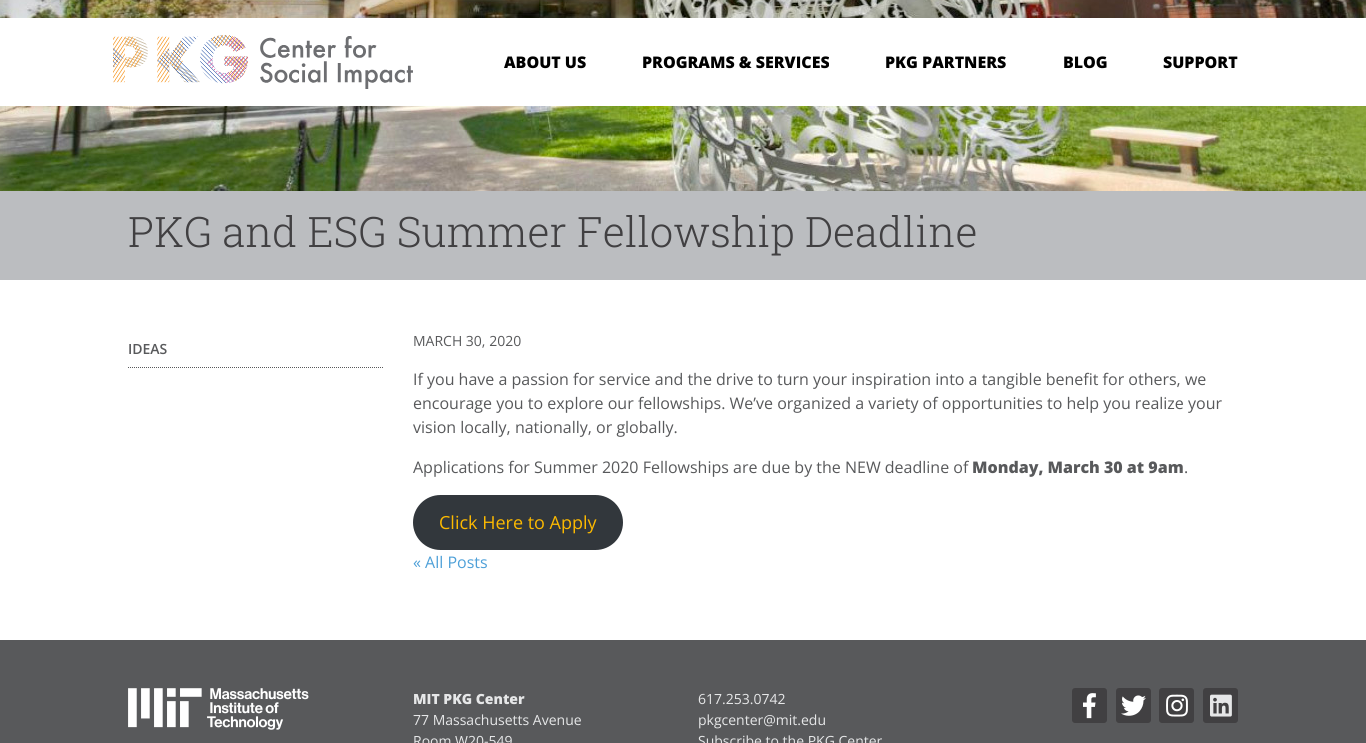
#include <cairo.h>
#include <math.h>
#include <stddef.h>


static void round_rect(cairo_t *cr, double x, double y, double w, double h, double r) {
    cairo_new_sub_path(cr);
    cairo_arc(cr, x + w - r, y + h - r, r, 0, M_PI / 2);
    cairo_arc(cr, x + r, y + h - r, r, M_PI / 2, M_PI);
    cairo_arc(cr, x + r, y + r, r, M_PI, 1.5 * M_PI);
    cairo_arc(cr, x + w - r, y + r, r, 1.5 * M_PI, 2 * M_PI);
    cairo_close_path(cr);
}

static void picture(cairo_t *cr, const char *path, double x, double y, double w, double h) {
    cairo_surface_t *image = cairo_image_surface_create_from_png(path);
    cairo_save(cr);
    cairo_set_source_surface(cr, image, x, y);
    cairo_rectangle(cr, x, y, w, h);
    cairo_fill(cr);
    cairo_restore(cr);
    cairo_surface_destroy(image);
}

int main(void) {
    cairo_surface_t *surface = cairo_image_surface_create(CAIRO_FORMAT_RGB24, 1366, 743);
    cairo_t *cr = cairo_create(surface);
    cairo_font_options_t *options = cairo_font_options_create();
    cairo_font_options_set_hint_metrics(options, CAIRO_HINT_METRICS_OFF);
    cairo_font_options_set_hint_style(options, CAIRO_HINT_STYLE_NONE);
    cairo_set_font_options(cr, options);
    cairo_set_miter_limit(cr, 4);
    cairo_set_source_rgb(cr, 1, 1, 1);
    cairo_paint(cr);
    picture(cr, "img1.png", 0, 0, 1366, 191);
    cairo_set_source_rgb(cr, 1, 1, 1);
    cairo_rectangle(cr, 0, 18, 1366, 88);
    cairo_fill(cr);
    picture(cr, "img2.png", 113, 35, 300, 54);
    cairo_select_font_face(cr, "Open Sans ExtraBold", CAIRO_FONT_SLANT_NORMAL, CAIRO_FONT_WEIGHT_NORMAL);
    cairo_set_font_size(cr, 16);
    cairo_set_source_rgb(cr, 0, 0, 0);
    cairo_move_to(cr, 504, 68);
    cairo_show_text(cr, "ABOUT US");
    cairo_move_to(cr, 642, 68);
    cairo_show_text(cr, "PROGRAMS & SERVICES");
    cairo_move_to(cr, 885, 68);
    cairo_show_text(cr, "PKG PARTNERS");
    cairo_move_to(cr, 1063, 68);
    cairo_show_text(cr, "BLOG");
    cairo_move_to(cr, 1163, 68);
    cairo_show_text(cr, "SUPPORT");
    cairo_set_source_rgb(cr, 0.733, 0.741, 0.753);
    cairo_rectangle(cr, 0, 191, 1366, 89);
    cairo_fill(cr);
    cairo_select_font_face(cr, "Roboto Slab Light", CAIRO_FONT_SLANT_NORMAL, CAIRO_FONT_WEIGHT_NORMAL);
    cairo_set_font_size(cr, 42);
    cairo_set_source_rgb(cr, 0.255, 0.251, 0.259);
    cairo_move_to(cr, 128, 247);
    cairo_show_text(cr, "PKG and ESG Summer Fellowship Deadline");
    cairo_new_path(cr);
    cairo_move_to(cr, 128, 367.5);
    cairo_line_to(cr, 383, 367.5);
    cairo_set_source_rgb(cr, 0.345, 0.349, 0.357);
    cairo_set_line_width(cr, 1);
    cairo_set_dash(cr, (double[]){1, 1}, 2, 0);
    cairo_stroke(cr);
    cairo_select_font_face(cr, "Open Sans SemiBold", CAIRO_FONT_SLANT_NORMAL, CAIRO_FONT_WEIGHT_NORMAL);
    cairo_set_font_size(cr, 14);
    cairo_move_to(cr, 128, 354);
    cairo_show_text(cr, "IDEAS");
    cairo_select_font_face(cr, "Open Sans", CAIRO_FONT_SLANT_NORMAL, CAIRO_FONT_WEIGHT_NORMAL);
    cairo_move_to(cr, 413, 346);
    cairo_show_text(cr, "MARCH 30, 2020");
    cairo_set_font_size(cr, 16);
    cairo_move_to(cr, 413, 385);
    cairo_show_text(cr, "If you have a passion for service and the drive to turn your inspiration into a tangible benefit for others, we");
    cairo_move_to(cr, 413, 409);
    cairo_show_text(cr, "encourage you to explore our fellowships. We’ve organized a variety of opportunities to help you realize your");
    cairo_move_to(cr, 413, 433);
    cairo_show_text(cr, "vision locally, nationally, or globally.");
    cairo_move_to(cr, 413, 473);
    cairo_show_text(cr, "Applications for Summer 2020 Fellowships are due by the NEW deadline of");
    cairo_select_font_face(cr, "Open Sans ExtraBold", CAIRO_FONT_SLANT_NORMAL, CAIRO_FONT_WEIGHT_NORMAL);
    cairo_move_to(cr, 972, 473);
    cairo_show_text(cr, "Monday, March 30 at 9am");
    cairo_select_font_face(cr, "Open Sans", CAIRO_FONT_SLANT_NORMAL, CAIRO_FONT_WEIGHT_NORMAL);
    cairo_move_to(cr, 1184, 473);
    cairo_show_text(cr, ".");
    cairo_set_source_rgb(cr, 0.196, 0.216, 0.235);
    round_rect(cr, 413, 495, 210, 55, 27.5);
    cairo_fill(cr);
    cairo_set_font_size(cr, 18);
    cairo_set_source_rgb(cr, 0.988, 0.725, 0);
    cairo_move_to(cr, 439, 529);
    cairo_show_text(cr, "Click Here to Apply");
    cairo_set_font_size(cr, 16);
    cairo_set_source_rgb(cr, 0.306, 0.627, 0.847);
    cairo_move_to(cr, 413, 568);
    cairo_show_text(cr, "« All Posts");
    cairo_set_source_rgb(cr, 0.345, 0.349, 0.357);
    cairo_rectangle(cr, 0, 640, 1366, 103);
    cairo_fill(cr);
    picture(cr, "img3.png", 128, 688, 181, 42);
    cairo_select_font_face(cr, "Open Sans ExtraBold", CAIRO_FONT_SLANT_NORMAL, CAIRO_FONT_WEIGHT_NORMAL);
    cairo_set_font_size(cr, 14);
    cairo_set_source_rgb(cr, 0.902, 0.906, 0.91);
    cairo_move_to(cr, 413, 704);
    cairo_show_text(cr, "MIT PKG Center");
    cairo_select_font_face(cr, "Open Sans", CAIRO_FONT_SLANT_NORMAL, CAIRO_FONT_WEIGHT_NORMAL);
    cairo_move_to(cr, 413, 725);
    cairo_show_text(cr, "77 Massachusetts Avenue");
    cairo_move_to(cr, 413, 746);
    cairo_show_text(cr, "Room W20-549");
    cairo_move_to(cr, 698, 704);
    cairo_show_text(cr, "617.253.0742");
    cairo_move_to(cr, 698, 725);
    cairo_show_text(cr, "pkgcenter@mit.edu");
    cairo_move_to(cr, 698, 746);
    cairo_show_text(cr, "Subscribe to the PKG Center");
    cairo_set_source_rgb(cr, 0.255, 0.251, 0.259);
    round_rect(cr, 1072, 688, 35, 35, 3);
    cairo_fill(cr);
    picture(cr, "img4.png", 1083, 693, 13, 26);
    round_rect(cr, 1116, 688, 35, 35, 3);
    cairo_fill(cr);
    picture(cr, "img5.png", 1121, 695, 25, 21);
    round_rect(cr, 1159, 688, 35, 35, 3);
    cairo_fill(cr);
    picture(cr, "img6.png", 1166, 694, 22, 23);
    round_rect(cr, 1203, 688, 35, 35, 3);
    cairo_fill(cr);
    picture(cr, "img7.png", 1210, 694, 22, 23);
    cairo_surface_write_to_png(surface, "page.png");
    cairo_font_options_destroy(options);
    cairo_destroy(cr);
    cairo_surface_destroy(surface);
    return 0;
}
